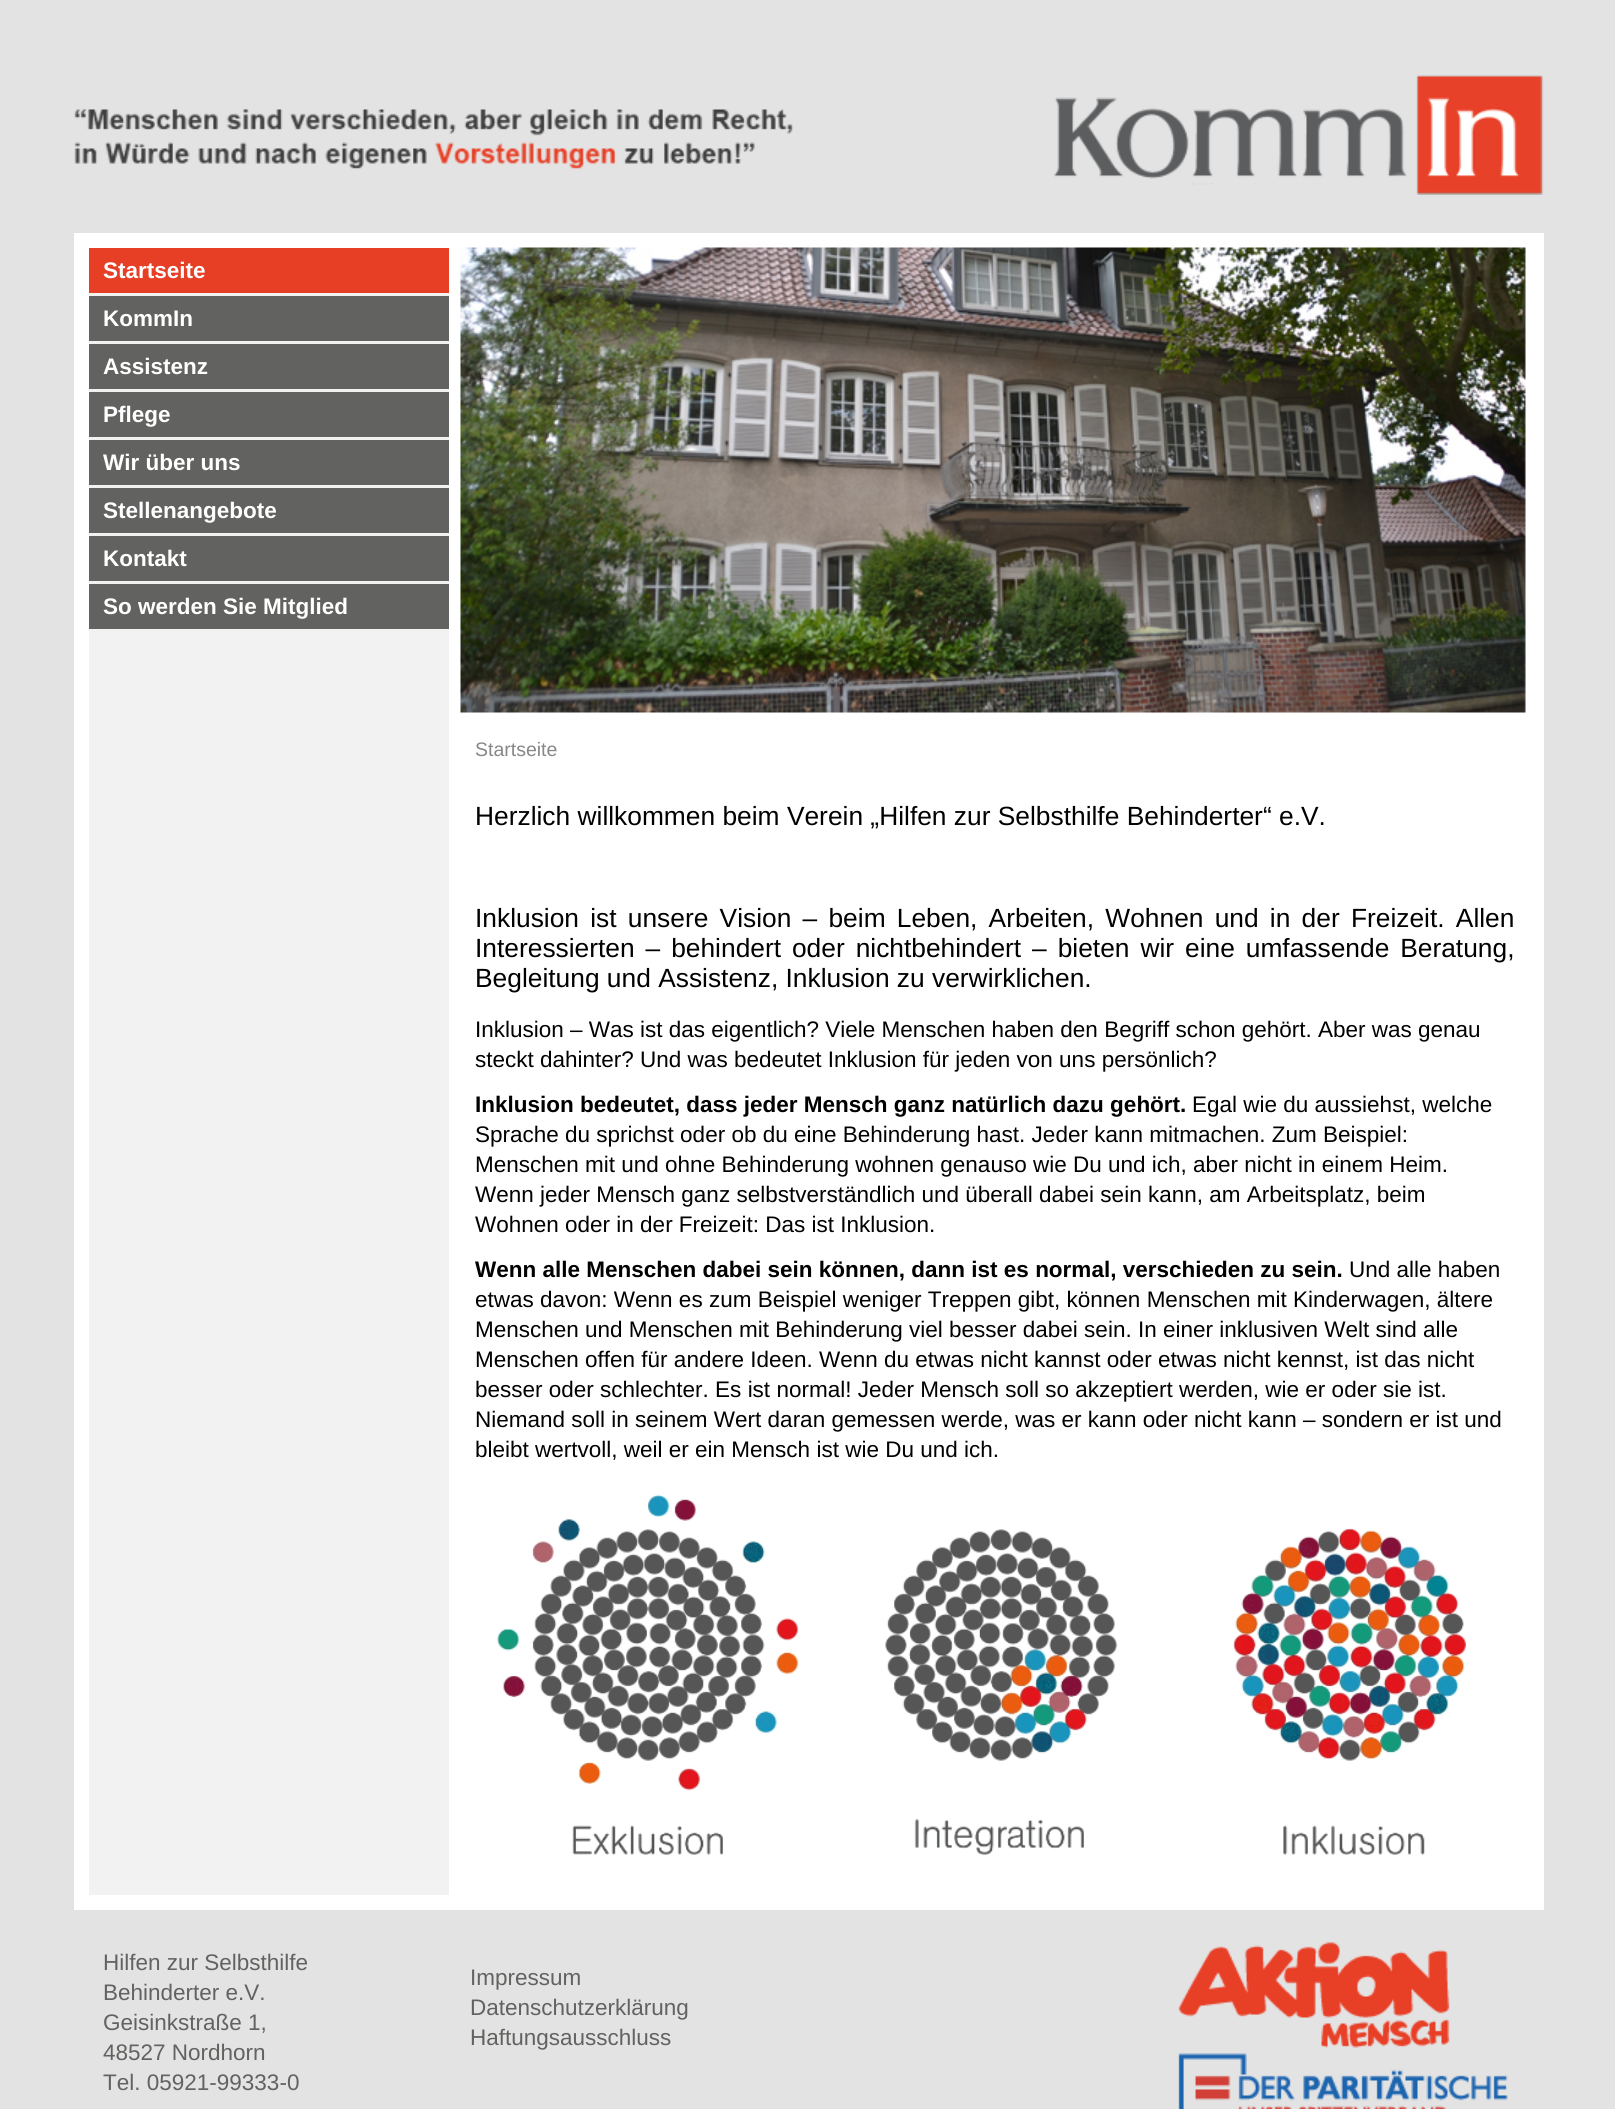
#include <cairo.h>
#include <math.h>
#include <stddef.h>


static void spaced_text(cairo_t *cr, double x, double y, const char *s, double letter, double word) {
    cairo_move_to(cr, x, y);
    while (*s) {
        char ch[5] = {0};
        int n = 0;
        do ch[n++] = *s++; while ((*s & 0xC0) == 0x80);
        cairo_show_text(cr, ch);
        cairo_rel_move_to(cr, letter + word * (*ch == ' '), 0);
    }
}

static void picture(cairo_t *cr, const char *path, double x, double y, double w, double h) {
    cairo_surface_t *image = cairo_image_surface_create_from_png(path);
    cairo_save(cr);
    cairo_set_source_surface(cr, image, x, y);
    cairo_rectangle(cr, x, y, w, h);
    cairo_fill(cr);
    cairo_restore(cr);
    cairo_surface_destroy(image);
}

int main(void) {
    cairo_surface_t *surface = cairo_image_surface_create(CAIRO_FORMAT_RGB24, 1615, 2109);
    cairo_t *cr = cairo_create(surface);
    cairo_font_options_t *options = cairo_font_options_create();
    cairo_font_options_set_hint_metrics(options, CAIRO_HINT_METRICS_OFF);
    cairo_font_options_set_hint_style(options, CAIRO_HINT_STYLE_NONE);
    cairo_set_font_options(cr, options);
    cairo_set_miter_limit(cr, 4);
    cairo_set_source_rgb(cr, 0.89, 0.89, 0.89);
    cairo_paint(cr);
    picture(cr, "img1.png", 74, 109, 719, 61);
    picture(cr, "img2.png", 1054, 75, 490, 120);
    cairo_set_source_rgb(cr, 1, 1, 1);
    cairo_rectangle(cr, 74, 233, 1470, 1677);
    cairo_fill(cr);
    cairo_set_source_rgb(cr, 0.949, 0.949, 0.949);
    cairo_rectangle(cr, 89, 629, 360, 1266);
    cairo_fill(cr);
    cairo_set_source_rgb(cr, 0.906, 0.247, 0.149);
    cairo_rectangle(cr, 89, 248, 360, 45);
    cairo_fill(cr);
    cairo_set_source_rgb(cr, 0.949, 0.949, 0.949);
    cairo_rectangle(cr, 89, 293, 360, 3);
    cairo_fill(cr);
    cairo_select_font_face(cr, "Liberation Sans", CAIRO_FONT_SLANT_NORMAL, CAIRO_FONT_WEIGHT_BOLD);
    cairo_set_font_size(cr, 22.5);
    cairo_set_source_rgb(cr, 1, 1, 1);
    cairo_move_to(cr, 103, 278);
    cairo_show_text(cr, "Startseite");
    cairo_set_source_rgb(cr, 0.384, 0.384, 0.38);
    cairo_rectangle(cr, 89, 296, 360, 45);
    cairo_fill(cr);
    cairo_set_source_rgb(cr, 0.949, 0.949, 0.949);
    cairo_rectangle(cr, 89, 341, 360, 3);
    cairo_fill(cr);
    cairo_set_source_rgb(cr, 1, 1, 1);
    cairo_move_to(cr, 103, 326);
    cairo_show_text(cr, "KommIn");
    cairo_set_source_rgb(cr, 0.384, 0.384, 0.38);
    cairo_rectangle(cr, 89, 344, 360, 45);
    cairo_fill(cr);
    cairo_set_source_rgb(cr, 0.949, 0.949, 0.949);
    cairo_rectangle(cr, 89, 389, 360, 3);
    cairo_fill(cr);
    cairo_set_source_rgb(cr, 1, 1, 1);
    cairo_move_to(cr, 103, 374);
    cairo_show_text(cr, "Assistenz");
    cairo_set_source_rgb(cr, 0.384, 0.384, 0.38);
    cairo_rectangle(cr, 89, 392, 360, 45);
    cairo_fill(cr);
    cairo_set_source_rgb(cr, 0.949, 0.949, 0.949);
    cairo_rectangle(cr, 89, 437, 360, 3);
    cairo_fill(cr);
    cairo_set_source_rgb(cr, 1, 1, 1);
    cairo_move_to(cr, 103, 422);
    cairo_show_text(cr, "Pflege");
    cairo_set_source_rgb(cr, 0.384, 0.384, 0.38);
    cairo_rectangle(cr, 89, 440, 360, 45);
    cairo_fill(cr);
    cairo_set_source_rgb(cr, 0.949, 0.949, 0.949);
    cairo_rectangle(cr, 89, 485, 360, 3);
    cairo_fill(cr);
    cairo_set_source_rgb(cr, 1, 1, 1);
    cairo_move_to(cr, 103, 470);
    cairo_show_text(cr, "Wir über uns");
    cairo_set_source_rgb(cr, 0.384, 0.384, 0.38);
    cairo_rectangle(cr, 89, 488, 360, 45);
    cairo_fill(cr);
    cairo_set_source_rgb(cr, 0.949, 0.949, 0.949);
    cairo_rectangle(cr, 89, 533, 360, 3);
    cairo_fill(cr);
    cairo_set_source_rgb(cr, 1, 1, 1);
    cairo_move_to(cr, 103, 518);
    cairo_show_text(cr, "Stellenangebote");
    cairo_set_source_rgb(cr, 0.384, 0.384, 0.38);
    cairo_rectangle(cr, 89, 536, 360, 45);
    cairo_fill(cr);
    cairo_set_source_rgb(cr, 0.949, 0.949, 0.949);
    cairo_rectangle(cr, 89, 581, 360, 3);
    cairo_fill(cr);
    cairo_set_source_rgb(cr, 1, 1, 1);
    cairo_move_to(cr, 103, 566);
    cairo_show_text(cr, "Kontakt");
    cairo_set_source_rgb(cr, 0.384, 0.384, 0.38);
    cairo_rectangle(cr, 89, 584, 360, 45);
    cairo_fill(cr);
    cairo_set_source_rgb(cr, 1, 1, 1);
    cairo_move_to(cr, 103, 614);
    cairo_show_text(cr, "So werden Sie Mitglied");
    picture(cr, "img3.png", 460, 247, 1066, 466);
    cairo_select_font_face(cr, "Liberation Sans", CAIRO_FONT_SLANT_NORMAL, CAIRO_FONT_WEIGHT_NORMAL);
    cairo_set_font_size(cr, 19.5);
    cairo_set_source_rgb(cr, 0.525, 0.529, 0.525);
    cairo_move_to(cr, 475, 756);
    cairo_show_text(cr, "Startseite");
    cairo_set_font_size(cr, 26.35);
    cairo_set_source_rgb(cr, 0, 0, 0);
    cairo_move_to(cr, 475, 825);
    cairo_show_text(cr, "Herzlich willkommen beim Verein „Hilfen zur Selbsthilfe Behinderter“ e.V.");
    spaced_text(cr, 475, 927, "Inklusion ist unsere Vision – beim Leben, Arbeiten, Wohnen und in der Freizeit. Allen", 0, 3.9);
    spaced_text(cr, 475, 957, "Interessierten – behindert oder nichtbehindert – bieten wir eine umfassende Beratung,", 0, 3.6);
    cairo_move_to(cr, 475, 987);
    cairo_show_text(cr, "Begleitung und Assistenz, Inklusion zu verwirklichen.");
    cairo_set_font_size(cr, 22.5);
    cairo_move_to(cr, 475, 1037);
    cairo_show_text(cr, "Inklusion – Was ist das eigentlich? Viele Menschen haben den Begriff schon gehört. Aber was genau");
    cairo_move_to(cr, 475, 1067);
    cairo_show_text(cr, "steckt dahinter? Und was bedeutet Inklusion für jeden von uns persönlich?");
    cairo_select_font_face(cr, "Liberation Sans", CAIRO_FONT_SLANT_NORMAL, CAIRO_FONT_WEIGHT_BOLD);
    cairo_move_to(cr, 475, 1112);
    cairo_show_text(cr, "Inklusion bedeutet, dass jeder Mensch ganz natürlich dazu gehört.");
    cairo_select_font_face(cr, "Liberation Sans", CAIRO_FONT_SLANT_NORMAL, CAIRO_FONT_WEIGHT_NORMAL);
    cairo_move_to(cr, 1192, 1112);
    cairo_show_text(cr, "Egal wie du aussiehst, welche");
    cairo_move_to(cr, 475, 1142);
    cairo_show_text(cr, "Sprache du sprichst oder ob du eine Behinderung hast. Jeder kann mitmachen. Zum Beispiel:");
    cairo_move_to(cr, 475, 1172);
    cairo_show_text(cr, "Menschen mit und ohne Behinderung wohnen genauso wie Du und ich, aber nicht in einem Heim.");
    cairo_move_to(cr, 475, 1202);
    cairo_show_text(cr, "Wenn jeder Mensch ganz selbstverständlich und überall dabei sein kann, am Arbeitsplatz, beim");
    cairo_move_to(cr, 475, 1232);
    cairo_show_text(cr, "Wohnen oder in der Freizeit: Das ist Inklusion.");
    cairo_select_font_face(cr, "Liberation Sans", CAIRO_FONT_SLANT_NORMAL, CAIRO_FONT_WEIGHT_BOLD);
    cairo_move_to(cr, 475, 1277);
    cairo_show_text(cr, "Wenn alle Menschen dabei sein können, dann ist es normal, verschieden zu sein.");
    cairo_select_font_face(cr, "Liberation Sans", CAIRO_FONT_SLANT_NORMAL, CAIRO_FONT_WEIGHT_NORMAL);
    cairo_move_to(cr, 1349, 1277);
    cairo_show_text(cr, "Und alle haben");
    cairo_move_to(cr, 475, 1307);
    cairo_show_text(cr, "etwas davon: Wenn es zum Beispiel weniger Treppen gibt, können Menschen mit Kinderwagen, ältere");
    cairo_move_to(cr, 475, 1337);
    cairo_show_text(cr, "Menschen und Menschen mit Behinderung viel besser dabei sein. In einer inklusiven Welt sind alle");
    cairo_move_to(cr, 475, 1367);
    cairo_show_text(cr, "Menschen offen für andere Ideen. Wenn du etwas nicht kannst oder etwas nicht kennst, ist das nicht");
    cairo_move_to(cr, 475, 1397);
    cairo_show_text(cr, "besser oder schlechter. Es ist normal! Jeder Mensch soll so akzeptiert werden, wie er oder sie ist.");
    cairo_move_to(cr, 475, 1427);
    cairo_show_text(cr, "Niemand soll in seinem Wert daran gemessen werde, was er kann oder nicht kann – sondern er ist und");
    cairo_move_to(cr, 475, 1457);
    cairo_show_text(cr, "bleibt wertvoll, weil er ein Mensch ist wie Du und ich.");
    picture(cr, "img4.png", 497, 1494, 970, 361);
    cairo_set_source_rgb(cr, 0.384, 0.384, 0.38);
    cairo_move_to(cr, 103, 1970);
    cairo_show_text(cr, "Hilfen zur Selbsthilfe");
    cairo_move_to(cr, 103, 2000);
    cairo_show_text(cr, "Behinderter e.V.");
    cairo_move_to(cr, 103, 2030);
    cairo_show_text(cr, "Geisinkstraße 1,");
    cairo_move_to(cr, 103, 2060);
    cairo_show_text(cr, "48527 Nordhorn");
    cairo_move_to(cr, 103, 2090);
    cairo_show_text(cr, "Tel. 05921-99333-0");
    cairo_move_to(cr, 470, 1985);
    cairo_show_text(cr, "Impressum");
    cairo_move_to(cr, 470, 2015);
    cairo_show_text(cr, "Datenschutzerklärung");
    cairo_move_to(cr, 470, 2045);
    cairo_show_text(cr, "Haftungsausschluss");
    picture(cr, "img5.png", 1178, 1942, 272, 106);
    picture(cr, "img6.png", 1178, 2053, 330, 56);
    cairo_surface_write_to_png(surface, "page.png");
    cairo_font_options_destroy(options);
    cairo_destroy(cr);
    cairo_surface_destroy(surface);
    return 0;
}
